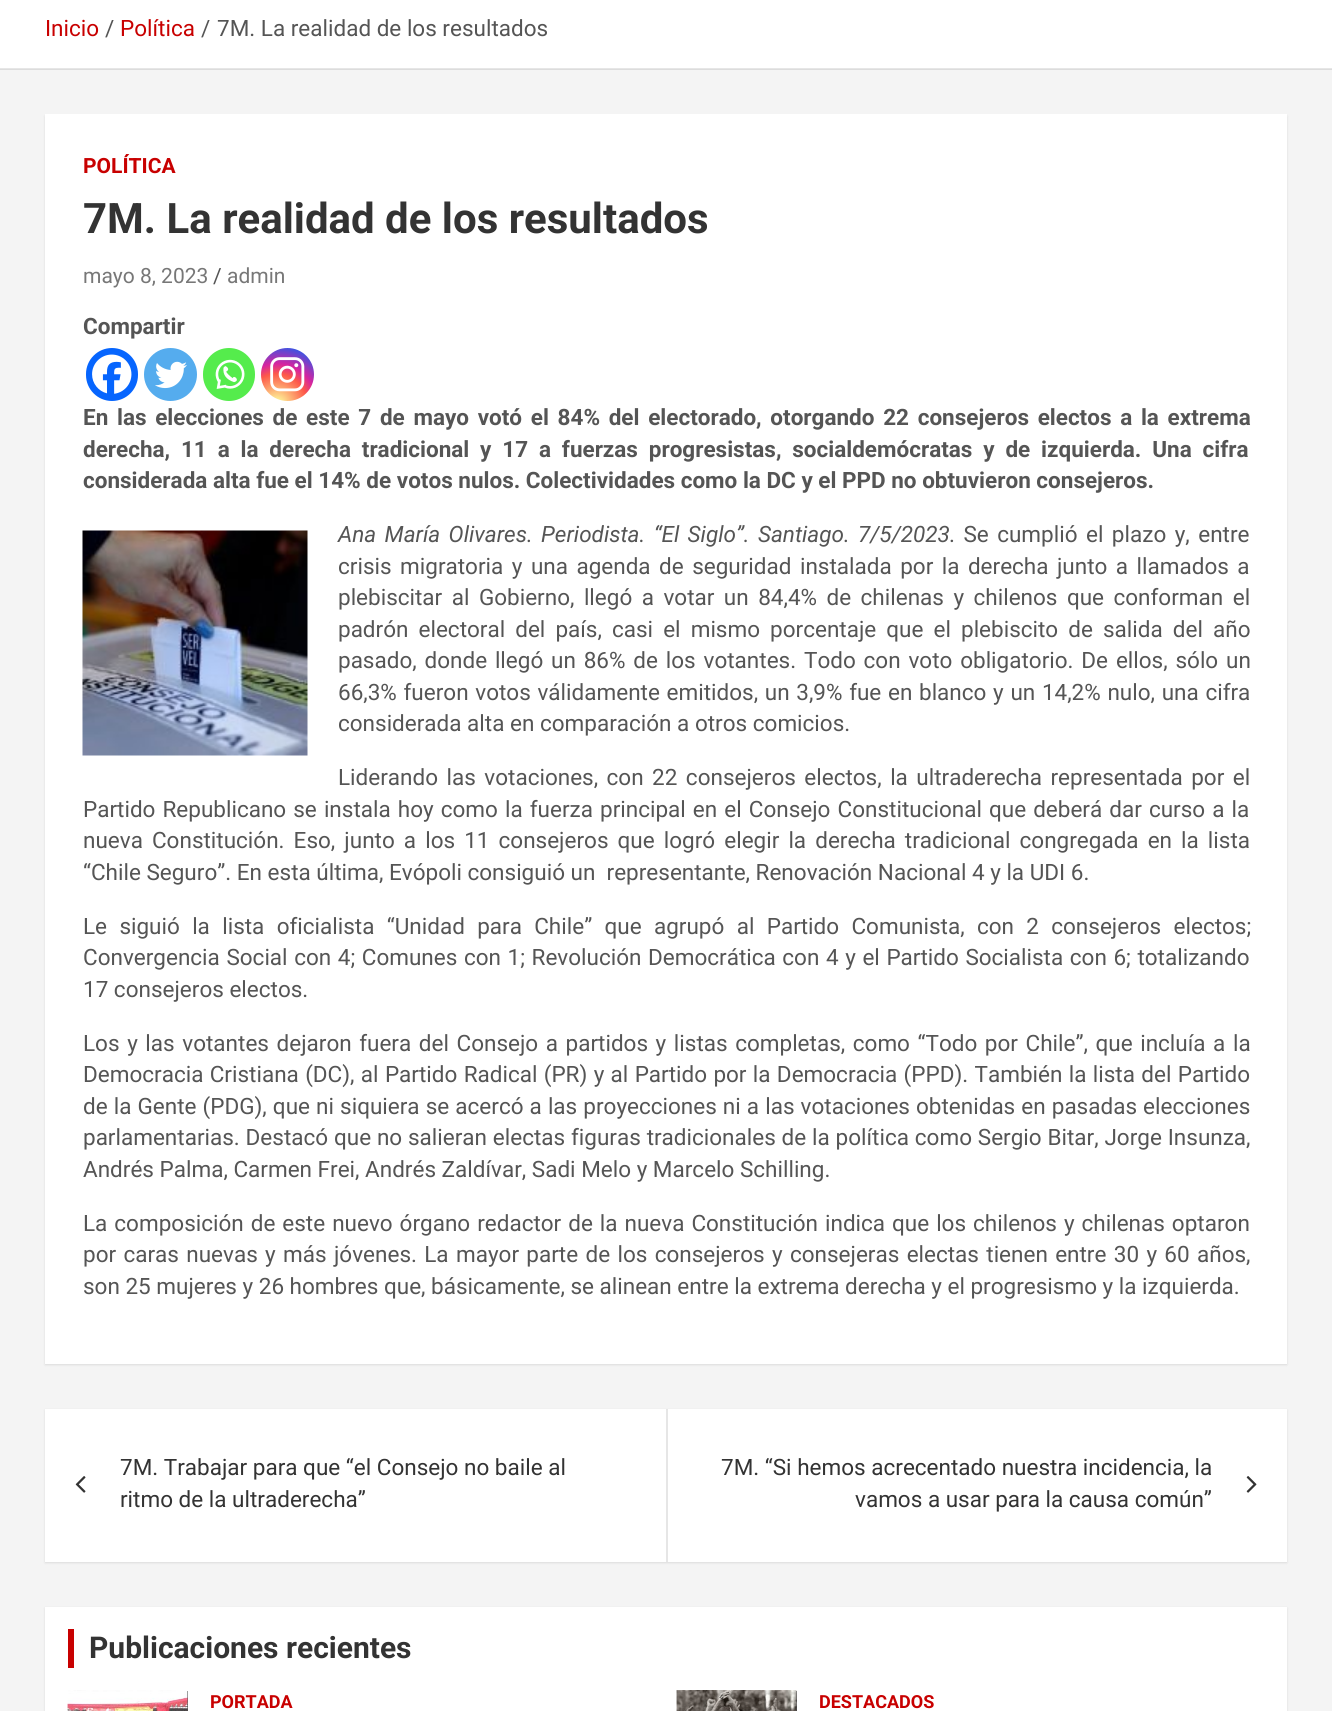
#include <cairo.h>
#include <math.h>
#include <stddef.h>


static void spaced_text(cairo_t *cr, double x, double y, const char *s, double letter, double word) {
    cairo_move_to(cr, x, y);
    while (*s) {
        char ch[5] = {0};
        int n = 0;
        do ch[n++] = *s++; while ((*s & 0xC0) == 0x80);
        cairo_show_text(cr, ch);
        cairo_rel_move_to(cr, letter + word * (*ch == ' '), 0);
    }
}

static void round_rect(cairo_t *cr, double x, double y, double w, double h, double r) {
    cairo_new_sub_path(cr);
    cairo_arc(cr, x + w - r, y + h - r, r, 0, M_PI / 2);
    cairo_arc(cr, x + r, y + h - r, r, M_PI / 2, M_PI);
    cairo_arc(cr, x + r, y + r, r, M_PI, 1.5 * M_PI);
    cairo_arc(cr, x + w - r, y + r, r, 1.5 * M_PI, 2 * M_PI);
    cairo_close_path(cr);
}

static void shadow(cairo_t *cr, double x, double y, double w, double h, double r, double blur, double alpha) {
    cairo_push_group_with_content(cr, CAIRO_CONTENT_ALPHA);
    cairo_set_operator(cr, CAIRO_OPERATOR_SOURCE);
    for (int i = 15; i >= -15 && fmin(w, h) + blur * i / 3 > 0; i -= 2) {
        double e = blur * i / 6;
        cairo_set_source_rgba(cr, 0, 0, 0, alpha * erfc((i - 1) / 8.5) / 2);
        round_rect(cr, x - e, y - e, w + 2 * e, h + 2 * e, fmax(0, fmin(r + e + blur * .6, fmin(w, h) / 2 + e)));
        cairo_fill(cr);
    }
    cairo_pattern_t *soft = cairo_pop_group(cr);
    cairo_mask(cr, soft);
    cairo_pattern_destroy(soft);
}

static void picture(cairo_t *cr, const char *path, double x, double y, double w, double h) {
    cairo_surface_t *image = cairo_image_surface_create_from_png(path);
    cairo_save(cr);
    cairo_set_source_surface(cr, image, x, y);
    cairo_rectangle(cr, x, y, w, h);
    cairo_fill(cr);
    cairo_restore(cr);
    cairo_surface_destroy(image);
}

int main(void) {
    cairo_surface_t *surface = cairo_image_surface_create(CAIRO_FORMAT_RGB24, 1332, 1711);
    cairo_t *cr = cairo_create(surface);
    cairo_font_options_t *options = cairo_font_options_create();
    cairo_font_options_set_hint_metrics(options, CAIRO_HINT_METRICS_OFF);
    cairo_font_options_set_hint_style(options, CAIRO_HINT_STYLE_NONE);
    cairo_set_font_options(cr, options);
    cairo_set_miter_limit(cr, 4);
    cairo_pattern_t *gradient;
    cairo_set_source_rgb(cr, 0.957, 0.957, 0.957);
    cairo_paint(cr);
    cairo_set_source_rgb(cr, 0.863, 0.863, 0.863);
    cairo_rectangle(cr, 0, 69, 1332, 1);
    cairo_fill(cr);
    cairo_set_source_rgb(cr, 1, 1, 1);
    cairo_rectangle(cr, 0, 0, 1332, 68);
    cairo_fill(cr);
    cairo_set_source_rgb(cr, 0.902, 0.902, 0.902);
    cairo_rectangle(cr, 0, 68, 1332, 1);
    cairo_fill(cr);
    cairo_select_font_face(cr, "Roboto", CAIRO_FONT_SLANT_NORMAL, CAIRO_FONT_WEIGHT_NORMAL);
    cairo_set_font_size(cr, 22.5);
    cairo_set_source_rgb(cr, 0.784, 0, 0);
    cairo_move_to(cr, 45, 36);
    cairo_show_text(cr, "Inicio");
    cairo_set_source_rgb(cr, 0.333, 0.333, 0.333);
    cairo_move_to(cr, 105, 36);
    cairo_show_text(cr, "/");
    cairo_set_source_rgb(cr, 0.784, 0, 0);
    cairo_move_to(cr, 120, 36);
    cairo_show_text(cr, "Política");
    cairo_set_source_rgb(cr, 0.333, 0.333, 0.333);
    cairo_move_to(cr, 201, 36);
    cairo_show_text(cr, "/");
    cairo_move_to(cr, 217, 36);
    cairo_show_text(cr, "7M. La realidad de los resultados");
    cairo_set_source_rgb(cr, 0, 0, 0);
    shadow(cr, 45, 116, 1242, 1249, 0, 1, 0.1);
    cairo_set_source_rgb(cr, 1, 1, 1);
    cairo_rectangle(cr, 45, 114, 1242, 1250);
    cairo_fill(cr);
    cairo_select_font_face(cr, "Roboto", CAIRO_FONT_SLANT_NORMAL, CAIRO_FONT_WEIGHT_BOLD);
    cairo_set_font_size(cr, 21);
    cairo_set_source_rgb(cr, 0.784, 0, 0);
    cairo_move_to(cr, 83, 173);
    cairo_show_text(cr, "POLÍTICA");
    cairo_set_font_size(cr, 42);
    cairo_set_source_rgb(cr, 0.2, 0.2, 0.2);
    cairo_move_to(cr, 83, 233);
    cairo_show_text(cr, "7M. La realidad de los resultados");
    cairo_select_font_face(cr, "Roboto", CAIRO_FONT_SLANT_NORMAL, CAIRO_FONT_WEIGHT_NORMAL);
    cairo_set_font_size(cr, 21);
    cairo_set_source_rgb(cr, 0.467, 0.467, 0.467);
    cairo_move_to(cr, 83, 283);
    cairo_show_text(cr, "mayo 8, 2023");
    cairo_set_source_rgb(cr, 0.333, 0.333, 0.333);
    cairo_move_to(cr, 213, 283);
    cairo_show_text(cr, "/");
    cairo_set_source_rgb(cr, 0.467, 0.467, 0.467);
    cairo_move_to(cr, 227, 283);
    cairo_show_text(cr, "admin");
    cairo_select_font_face(cr, "Roboto", CAIRO_FONT_SLANT_NORMAL, CAIRO_FONT_WEIGHT_BOLD);
    cairo_set_font_size(cr, 22.5);
    cairo_set_source_rgb(cr, 0.333, 0.333, 0.333);
    cairo_move_to(cr, 83, 334);
    cairo_show_text(cr, "Compartir");
    cairo_set_source_rgb(cr, 0.027, 0.396, 0.996);
    round_rect(cr, 86, 348, 52, 53, 26);
    cairo_fill(cr);
    picture(cr, "img1.png", 92, 354, 40, 40);
    cairo_set_source_rgb(cr, 0.333, 0.675, 0.933);
    cairo_arc(cr, 170.5, 374.5, 26.5, 0, 2 * M_PI);
    cairo_fill(cr);
    picture(cr, "img2.png", 155, 361, 32, 28);
    cairo_set_source_rgb(cr, 0.333, 0.922, 0.298);
    round_rect(cr, 203, 348, 52, 53, 26);
    cairo_fill(cr);
    picture(cr, "img3.png", 215, 359, 30, 30);
    gradient = cairo_pattern_create_radial(277, 404, 0, 277, 404, 67);
    cairo_pattern_add_color_stop_rgba(gradient, 0, 0.992, 0.957, 0.592, 1);
    cairo_pattern_add_color_stop_rgba(gradient, 0.05, 0.992, 0.957, 0.592, 1);
    cairo_pattern_add_color_stop_rgba(gradient, 0.45, 0.992, 0.349, 0.286, 1);
    cairo_pattern_add_color_stop_rgba(gradient, 0.6, 0.839, 0.141, 0.624, 1);
    cairo_pattern_add_color_stop_rgba(gradient, 0.9, 0.157, 0.353, 0.922, 1);
    cairo_set_source(cr, gradient);
    cairo_pattern_destroy(gradient);
    cairo_arc(cr, 287.5, 374.5, 26.5, 0, 2 * M_PI);
    cairo_fill(cr);
    picture(cr, "img4.png", 270, 357, 35, 35);
    cairo_set_source_rgb(cr, 0.333, 0.333, 0.333);
    spaced_text(cr, 83, 425, "En las elecciones de este 7 de mayo votó el 84% del electorado, otorgando 22 consejeros electos a la extrema", 0, 3.1);
    spaced_text(cr, 83, 457, "derecha, 11 a la derecha tradicional y 17 a fuerzas progresistas, socialdemócratas y de izquierda. Una cifra", 0, 5.25);
    cairo_move_to(cr, 83, 488);
    cairo_show_text(cr, "considerada alta fue el 14% de votos nulos. Colectividades como la DC y el PPD no obtuvieron consejeros.");
    picture(cr, "img5.png", 82, 530, 226, 226);
    cairo_select_font_face(cr, "Roboto", CAIRO_FONT_SLANT_ITALIC, CAIRO_FONT_WEIGHT_NORMAL);
    spaced_text(cr, 338, 542, "Ana María Olivares. Periodista. “El Siglo”. Santiago. 7/5/2023", 0, 2.9);
    cairo_select_font_face(cr, "Roboto", CAIRO_FONT_SLANT_NORMAL, CAIRO_FONT_WEIGHT_NORMAL);
    spaced_text(cr, 949, 542, ". Se cumplió el plazo y, entre", 0, 2.9);
    spaced_text(cr, 338, 574, "crisis migratoria y una agenda de seguridad instalada por la derecha junto a llamados a", 0, 2.9);
    spaced_text(cr, 338, 605, "plebiscitar al Gobierno, llegó a votar un 84,4% de chilenas y chilenos que conforman el", 0, 3.9);
    spaced_text(cr, 338, 637, "padrón electoral del país, casi el mismo porcentaje que el plebiscito de salida del año", 0, 4.5);
    spaced_text(cr, 338, 668, "pasado, donde llegó un 86% de los votantes. Todo con voto obligatorio. De ellos, sólo un", 0, 2.25);
    spaced_text(cr, 338, 700, "66,3% fueron votos válidamente emitidos, un 3,9% fue en blanco y un 14,2% nulo, una cifra", 0, 1.1);
    cairo_move_to(cr, 338, 731);
    cairo_show_text(cr, "considerada alta en comparación a otros comicios.");
    spaced_text(cr, 338, 785, "Liderando las votaciones, con 22 consejeros electos, la ultraderecha representada por el", 0, 2.9);
    spaced_text(cr, 83, 817, "Partido Republicano se instala hoy como la fuerza principal en el Consejo Constitucional que deberá dar curso a la", 0, 1.5);
    spaced_text(cr, 83, 848, "nueva Constitución. Eso, junto a los 11 consejeros que logró elegir la derecha tradicional congregada en la lista", 0, 3.5);
    cairo_move_to(cr, 83, 880);
    cairo_show_text(cr, "“Chile Seguro”. En esta última, Evópoli consiguió un  representante, Renovación Nacional 4 y la UDI 6.");
    spaced_text(cr, 83, 934, "Le siguió la lista oficialista “Unidad para Chile” que agrupó al Partido Comunista, con 2 consejeros electos;", 0, 6.75);
    spaced_text(cr, 83, 965, "Convergencia Social con 4; Comunes con 1; Revolución Democrática con 4 y el Partido Socialista con 6; totalizando", 0, 1);
    cairo_move_to(cr, 83, 997);
    cairo_show_text(cr, "17 consejeros electos.");
    spaced_text(cr, 83, 1051, "Los y las votantes dejaron fuera del Consejo a partidos y listas completas, como “Todo por Chile”, que incluía a la", 0, 2);
    spaced_text(cr, 83, 1082, "Democracia Cristiana (DC), al Partido Radical (PR) y al Partido por la Democracia (PPD). También la lista del Partido", 0, 0.75);
    spaced_text(cr, 83, 1114, "de la Gente (PDG), que ni siquiera se acercó a las proyecciones ni a las votaciones obtenidas en pasadas elecciones", 0, 0.5);
    spaced_text(cr, 83, 1145, "parlamentarias. Destacó que no salieran electas figuras tradicionales de la política como Sergio Bitar, Jorge Insunza,", 0, 0.25);
    cairo_move_to(cr, 83, 1177);
    cairo_show_text(cr, "Andrés Palma, Carmen Frei, Andrés Zaldívar, Sadi Melo y Marcelo Schilling.");
    spaced_text(cr, 83, 1231, "La composición de este nuevo órgano redactor de la nueva Constitución indica que los chilenos y chilenas optaron", 0, 1.4);
    spaced_text(cr, 83, 1262, "por caras nuevas y más jóvenes. La mayor parte de los consejeros y consejeras electas tienen entre 30 y 60 años,", 0, 1.75);
    cairo_move_to(cr, 83, 1294);
    cairo_show_text(cr, "son 25 mujeres y 26 hombres que, básicamente, se alinean entre la extrema derecha y el progresismo y la izquierda.");
    cairo_set_source_rgb(cr, 0, 0, 0);
    shadow(cr, 45, 1410, 1242, 153, 0, 1, 0.1);
    cairo_set_source_rgb(cr, 1, 1, 1);
    cairo_rectangle(cr, 45, 1409, 1242, 153);
    cairo_fill(cr);
    cairo_set_source_rgb(cr, 0.2, 0.2, 0.2);
    cairo_move_to(cr, 120, 1475);
    cairo_show_text(cr, "7M. Trabajar para que “el Consejo no baile al");
    picture(cr, "img6.png", 75, 1476, 11, 17);
    cairo_move_to(cr, 120, 1507);
    cairo_show_text(cr, "ritmo de la ultraderecha”");
    cairo_set_source_rgb(cr, 0.902, 0.902, 0.902);
    cairo_rectangle(cr, 666, 1409, 2, 153);
    cairo_fill(cr);
    cairo_set_source_rgb(cr, 0.2, 0.2, 0.2);
    cairo_move_to(cr, 721, 1475);
    cairo_show_text(cr, "7M. “Si hemos acrecentado nuestra incidencia, la");
    picture(cr, "img7.png", 1246, 1476, 11, 17);
    cairo_move_to(cr, 855, 1507);
    cairo_show_text(cr, "vamos a usar para la causa común”");
    cairo_set_source_rgb(cr, 0, 0, 0);
    shadow(cr, 45, 1608, 1242, 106, 0, 1, 0.1);
    cairo_set_source_rgb(cr, 1, 1, 1);
    cairo_rectangle(cr, 45, 1607, 1242, 104);
    cairo_fill(cr);
    cairo_set_source_rgb(cr, 0.784, 0, 0);
    cairo_rectangle(cr, 68, 1629, 6, 39);
    cairo_fill(cr);
    cairo_select_font_face(cr, "Roboto", CAIRO_FONT_SLANT_NORMAL, CAIRO_FONT_WEIGHT_BOLD);
    cairo_set_font_size(cr, 30);
    cairo_set_source_rgb(cr, 0.2, 0.2, 0.2);
    cairo_move_to(cr, 89, 1658);
    cairo_show_text(cr, "Publicaciones recientes");
    cairo_set_source_rgb(cr, 0.333, 0.333, 0.333);
    cairo_rectangle(cr, 187, 1691, 1, 20);
    cairo_fill(cr);
    picture(cr, "img8.png", 67, 1690, 121, 21);
    cairo_set_font_size(cr, 18);
    cairo_set_source_rgb(cr, 0.784, 0, 0);
    cairo_move_to(cr, 210, 1708);
    cairo_show_text(cr, "PORTADA");
    cairo_set_source_rgb(cr, 0.333, 0.333, 0.333);
    cairo_rectangle(cr, 796, 1691, 1, 20);
    cairo_fill(cr);
    picture(cr, "img9.png", 676, 1690, 121, 21);
    cairo_set_source_rgb(cr, 0.784, 0, 0);
    cairo_move_to(cr, 819, 1708);
    cairo_show_text(cr, "DESTACADOS");
    cairo_surface_write_to_png(surface, "page.png");
    cairo_font_options_destroy(options);
    cairo_destroy(cr);
    cairo_surface_destroy(surface);
    return 0;
}
